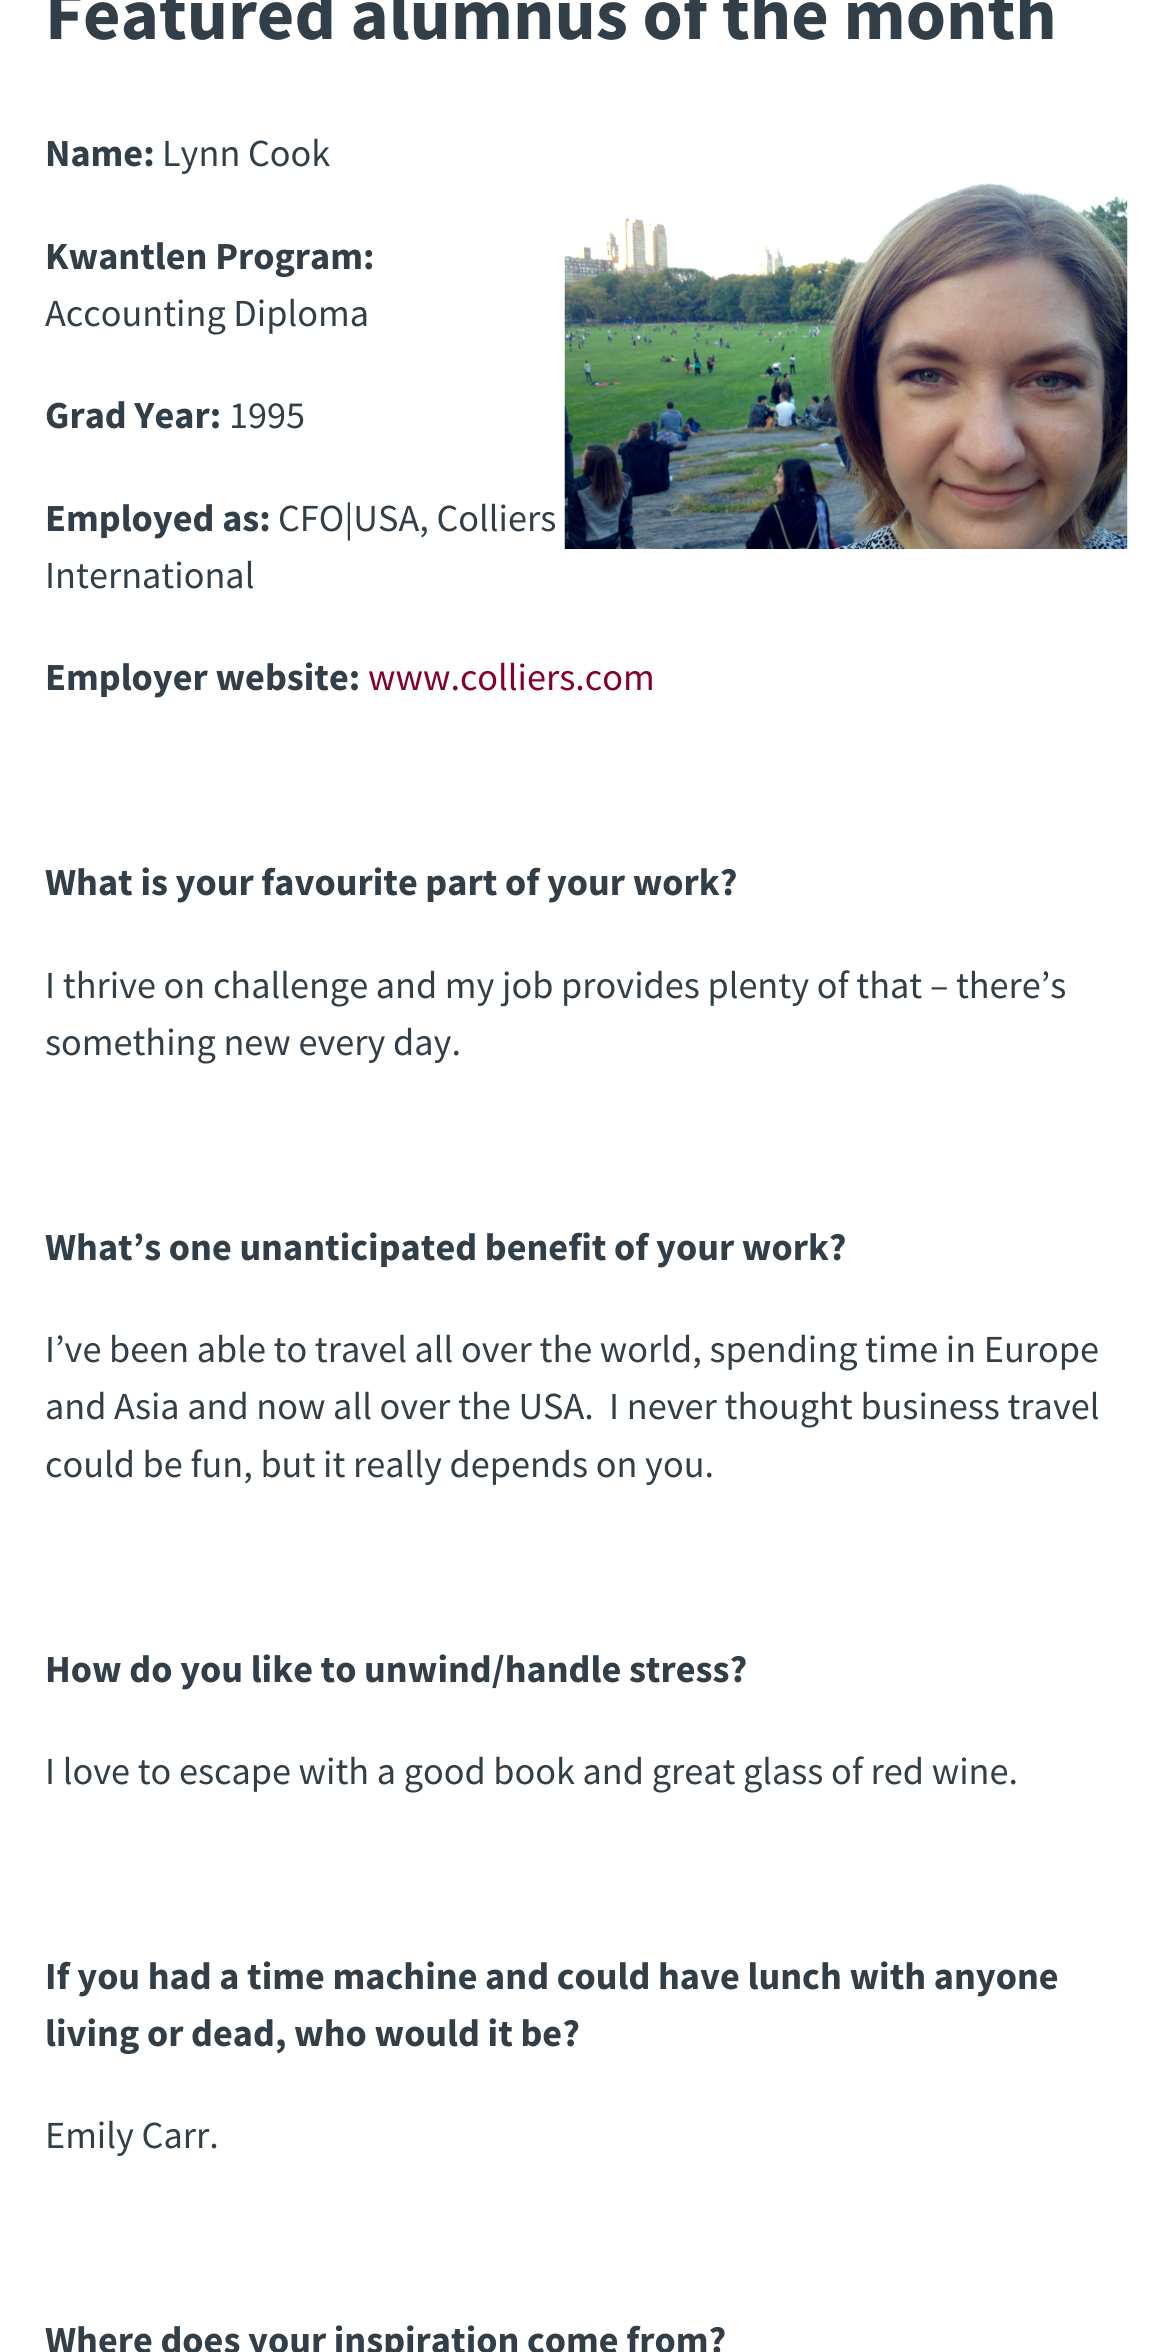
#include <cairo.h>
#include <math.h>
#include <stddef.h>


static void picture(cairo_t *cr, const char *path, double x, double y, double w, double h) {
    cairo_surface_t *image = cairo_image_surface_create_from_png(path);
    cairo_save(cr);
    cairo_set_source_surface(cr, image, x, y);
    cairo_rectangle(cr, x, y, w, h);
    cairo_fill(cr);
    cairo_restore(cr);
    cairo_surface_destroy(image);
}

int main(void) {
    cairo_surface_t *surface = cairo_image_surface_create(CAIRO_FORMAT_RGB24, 1171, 2352);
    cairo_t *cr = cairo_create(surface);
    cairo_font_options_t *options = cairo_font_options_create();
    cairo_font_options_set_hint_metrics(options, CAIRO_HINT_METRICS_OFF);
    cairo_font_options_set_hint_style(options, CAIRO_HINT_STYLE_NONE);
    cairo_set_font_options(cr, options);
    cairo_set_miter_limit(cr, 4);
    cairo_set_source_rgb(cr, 1, 1, 1);
    cairo_paint(cr);
    cairo_select_font_face(cr, "Source Sans Pro", CAIRO_FONT_SLANT_NORMAL, CAIRO_FONT_WEIGHT_BOLD);
    cairo_set_font_size(cr, 72.6);
    cairo_set_source_rgb(cr, 0.2, 0.247, 0.282);
    cairo_move_to(cr, 45, 39);
    cairo_show_text(cr, "Featured alumnus of the month");
    cairo_set_font_size(cr, 38.25);
    cairo_move_to(cr, 45, 166);
    cairo_show_text(cr, "Name:");
    cairo_select_font_face(cr, "Source Sans Pro", CAIRO_FONT_SLANT_NORMAL, CAIRO_FONT_WEIGHT_NORMAL);
    cairo_move_to(cr, 162, 166);
    cairo_show_text(cr, "Lynn Cook");
    picture(cr, "img1.png", 564, 183, 564, 366);
    cairo_select_font_face(cr, "Source Sans Pro", CAIRO_FONT_SLANT_NORMAL, CAIRO_FONT_WEIGHT_BOLD);
    cairo_move_to(cr, 45, 269);
    cairo_show_text(cr, "Kwantlen Program:");
    cairo_select_font_face(cr, "Source Sans Pro", CAIRO_FONT_SLANT_NORMAL, CAIRO_FONT_WEIGHT_NORMAL);
    cairo_move_to(cr, 45, 326);
    cairo_show_text(cr, "Accounting Diploma");
    cairo_select_font_face(cr, "Source Sans Pro", CAIRO_FONT_SLANT_NORMAL, CAIRO_FONT_WEIGHT_BOLD);
    cairo_move_to(cr, 45, 428);
    cairo_show_text(cr, "Grad Year:");
    cairo_select_font_face(cr, "Source Sans Pro", CAIRO_FONT_SLANT_NORMAL, CAIRO_FONT_WEIGHT_NORMAL);
    cairo_move_to(cr, 229, 428);
    cairo_show_text(cr, "1995");
    cairo_select_font_face(cr, "Source Sans Pro", CAIRO_FONT_SLANT_NORMAL, CAIRO_FONT_WEIGHT_BOLD);
    cairo_move_to(cr, 45, 531);
    cairo_show_text(cr, "Employed as:");
    cairo_select_font_face(cr, "Source Sans Pro", CAIRO_FONT_SLANT_NORMAL, CAIRO_FONT_WEIGHT_NORMAL);
    cairo_move_to(cr, 278, 531);
    cairo_show_text(cr, "CFO|USA, Colliers");
    cairo_move_to(cr, 45, 588);
    cairo_show_text(cr, "International");
    cairo_select_font_face(cr, "Source Sans Pro", CAIRO_FONT_SLANT_NORMAL, CAIRO_FONT_WEIGHT_BOLD);
    cairo_move_to(cr, 45, 690);
    cairo_show_text(cr, "Employer website:");
    cairo_select_font_face(cr, "Source Sans Pro", CAIRO_FONT_SLANT_NORMAL, CAIRO_FONT_WEIGHT_NORMAL);
    cairo_set_source_rgb(cr, 0.518, 0, 0.161);
    cairo_move_to(cr, 368, 690);
    cairo_show_text(cr, "www.colliers.com");
    cairo_select_font_face(cr, "Source Sans Pro", CAIRO_FONT_SLANT_NORMAL, CAIRO_FONT_WEIGHT_BOLD);
    cairo_set_source_rgb(cr, 0.2, 0.247, 0.282);
    cairo_move_to(cr, 45, 895);
    cairo_show_text(cr, "What is your favourite part of your work?");
    cairo_select_font_face(cr, "Source Sans Pro", CAIRO_FONT_SLANT_NORMAL, CAIRO_FONT_WEIGHT_NORMAL);
    cairo_move_to(cr, 45, 998);
    cairo_show_text(cr, "I thrive on challenge and my job provides plenty of that – there’s");
    cairo_move_to(cr, 45, 1055);
    cairo_show_text(cr, "something new every day.");
    cairo_select_font_face(cr, "Source Sans Pro", CAIRO_FONT_SLANT_NORMAL, CAIRO_FONT_WEIGHT_BOLD);
    cairo_move_to(cr, 45, 1260);
    cairo_show_text(cr, "What’s one unanticipated benefit of your work?");
    cairo_select_font_face(cr, "Source Sans Pro", CAIRO_FONT_SLANT_NORMAL, CAIRO_FONT_WEIGHT_NORMAL);
    cairo_move_to(cr, 45, 1362);
    cairo_show_text(cr, "I’ve been able to travel all over the world, spending time in Europe");
    cairo_move_to(cr, 45, 1419);
    cairo_show_text(cr, "and Asia and now all over the USA.  I never thought business travel");
    cairo_move_to(cr, 45, 1477);
    cairo_show_text(cr, "could be fun, but it really depends on you.");
    cairo_select_font_face(cr, "Source Sans Pro", CAIRO_FONT_SLANT_NORMAL, CAIRO_FONT_WEIGHT_BOLD);
    cairo_move_to(cr, 45, 1682);
    cairo_show_text(cr, "How do you like to unwind/handle stress?");
    cairo_select_font_face(cr, "Source Sans Pro", CAIRO_FONT_SLANT_NORMAL, CAIRO_FONT_WEIGHT_NORMAL);
    cairo_move_to(cr, 45, 1784);
    cairo_show_text(cr, "I love to escape with a good book and great glass of red wine.");
    cairo_select_font_face(cr, "Source Sans Pro", CAIRO_FONT_SLANT_NORMAL, CAIRO_FONT_WEIGHT_BOLD);
    cairo_move_to(cr, 45, 1989);
    cairo_show_text(cr, "If you had a time machine and could have lunch with anyone");
    cairo_move_to(cr, 45, 2046);
    cairo_show_text(cr, "living or dead, who would it be?");
    cairo_select_font_face(cr, "Source Sans Pro", CAIRO_FONT_SLANT_NORMAL, CAIRO_FONT_WEIGHT_NORMAL);
    cairo_move_to(cr, 45, 2148);
    cairo_show_text(cr, "Emily Carr.");
    cairo_select_font_face(cr, "Source Sans Pro", CAIRO_FONT_SLANT_NORMAL, CAIRO_FONT_WEIGHT_BOLD);
    cairo_move_to(cr, 45, 2353);
    cairo_show_text(cr, "Where does your inspiration come from?");
    cairo_surface_write_to_png(surface, "page.png");
    cairo_font_options_destroy(options);
    cairo_destroy(cr);
    cairo_surface_destroy(surface);
    return 0;
}
